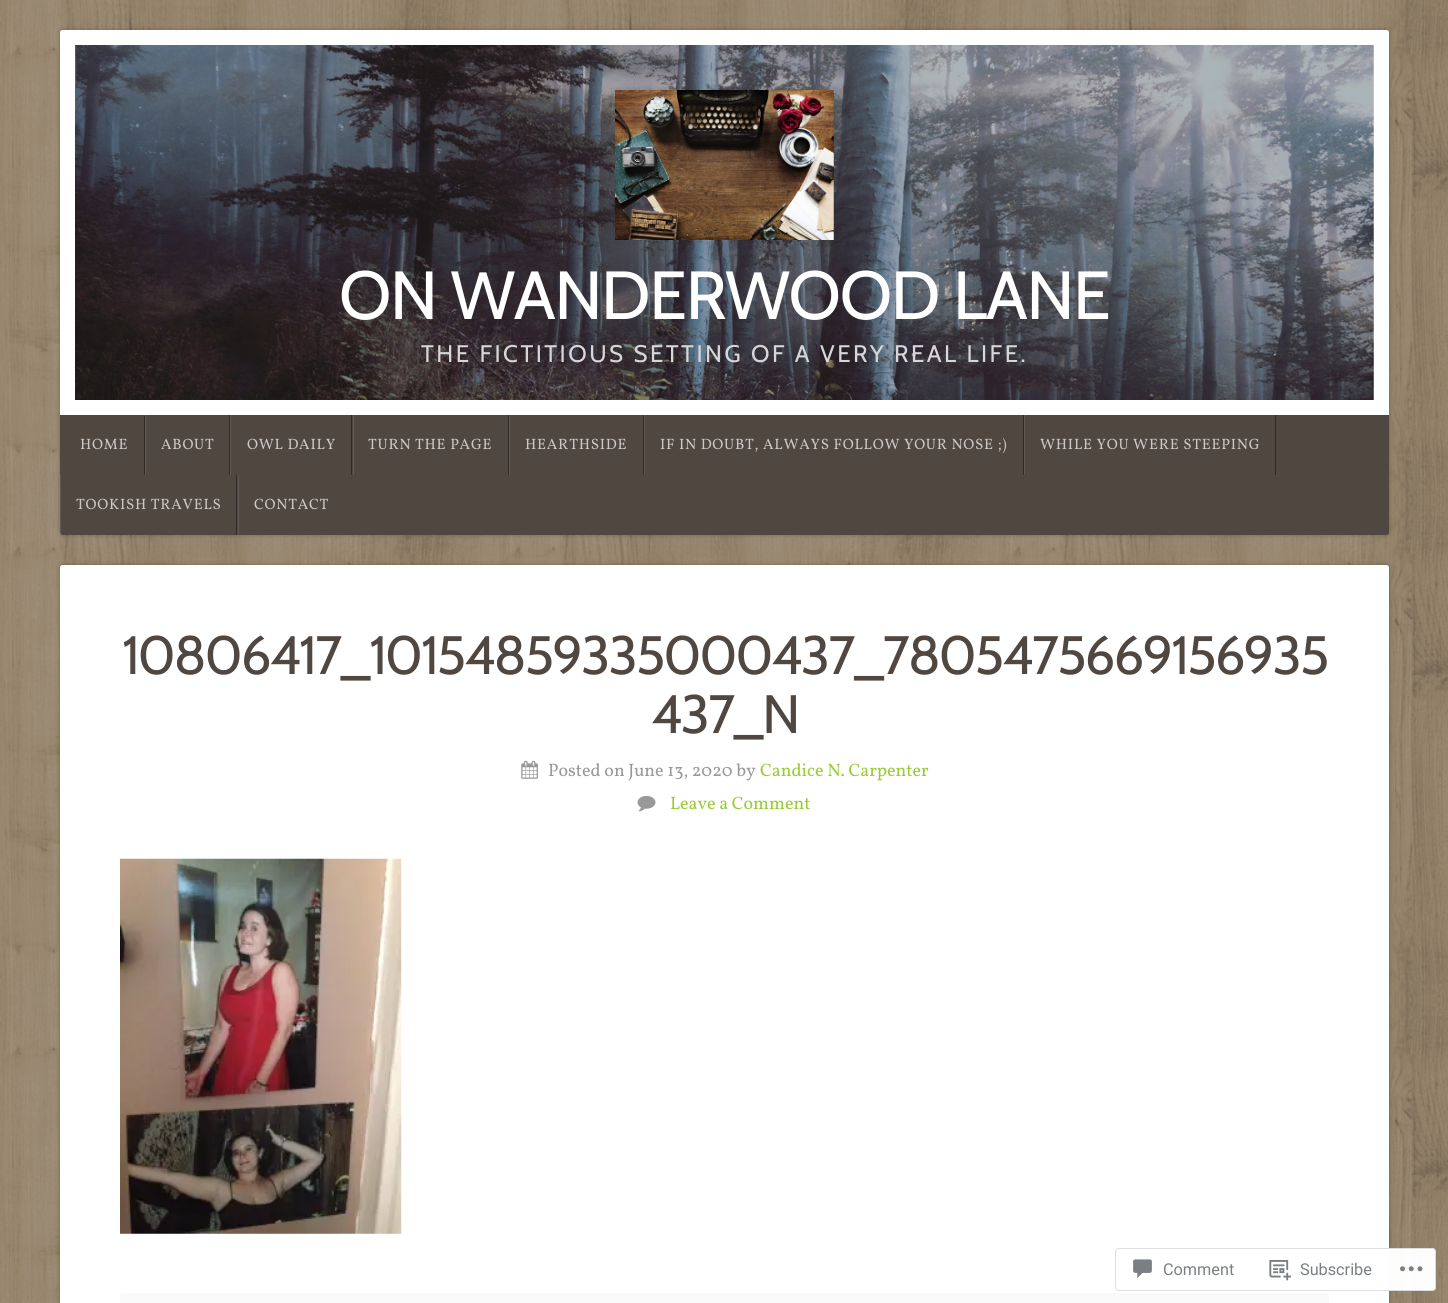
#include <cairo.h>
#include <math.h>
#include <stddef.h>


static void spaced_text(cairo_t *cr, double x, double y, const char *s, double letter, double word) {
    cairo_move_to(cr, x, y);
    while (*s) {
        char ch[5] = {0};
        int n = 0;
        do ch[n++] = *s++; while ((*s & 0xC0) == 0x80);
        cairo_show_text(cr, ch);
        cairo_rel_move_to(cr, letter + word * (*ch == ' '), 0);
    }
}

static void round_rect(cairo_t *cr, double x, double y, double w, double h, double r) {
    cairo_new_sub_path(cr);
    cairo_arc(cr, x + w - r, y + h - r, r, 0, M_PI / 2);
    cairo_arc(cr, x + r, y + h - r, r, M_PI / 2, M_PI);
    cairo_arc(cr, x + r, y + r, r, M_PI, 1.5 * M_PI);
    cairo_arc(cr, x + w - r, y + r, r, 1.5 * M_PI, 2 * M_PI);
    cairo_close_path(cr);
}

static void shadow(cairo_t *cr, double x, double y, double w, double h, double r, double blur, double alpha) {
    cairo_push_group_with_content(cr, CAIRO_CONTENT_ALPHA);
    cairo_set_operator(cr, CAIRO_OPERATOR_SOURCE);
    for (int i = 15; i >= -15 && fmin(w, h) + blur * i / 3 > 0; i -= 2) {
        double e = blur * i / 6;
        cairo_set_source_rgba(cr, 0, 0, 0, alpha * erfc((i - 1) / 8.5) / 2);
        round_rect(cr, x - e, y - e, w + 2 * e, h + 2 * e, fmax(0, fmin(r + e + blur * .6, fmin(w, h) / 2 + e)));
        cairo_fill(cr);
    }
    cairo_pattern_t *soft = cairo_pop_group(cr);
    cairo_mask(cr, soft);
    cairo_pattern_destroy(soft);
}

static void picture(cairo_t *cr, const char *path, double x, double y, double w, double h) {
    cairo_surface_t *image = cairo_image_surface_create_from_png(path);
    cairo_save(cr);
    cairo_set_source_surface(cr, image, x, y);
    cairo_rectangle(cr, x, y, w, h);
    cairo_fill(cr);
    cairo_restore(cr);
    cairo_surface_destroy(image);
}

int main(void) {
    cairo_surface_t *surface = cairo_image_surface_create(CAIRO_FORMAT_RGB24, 1448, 1303);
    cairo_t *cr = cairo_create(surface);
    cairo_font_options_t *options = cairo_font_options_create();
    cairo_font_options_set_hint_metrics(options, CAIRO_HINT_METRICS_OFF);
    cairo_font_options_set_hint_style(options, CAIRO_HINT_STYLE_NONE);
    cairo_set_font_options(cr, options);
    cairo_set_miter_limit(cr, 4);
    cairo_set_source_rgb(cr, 1, 1, 1);
    cairo_paint(cr);
    picture(cr, "img1.png", 0, 0, 1448, 1303);
    cairo_set_source_rgb(cr, 0, 0, 0);
    shadow(cr, 60, 30, 1329, 505, 2.5, 2.5, 0.24);
    cairo_set_source_rgb(cr, 1, 1, 1);
    cairo_new_path(cr);
    cairo_move_to(cr, 62.5, 30);
    cairo_line_to(cr, 1386.5, 30);
    cairo_curve_to(cr, 1388, 30, 1389, 31, 1389, 32.5);
    cairo_line_to(cr, 1389, 415);
    cairo_line_to(cr, 60, 415);
    cairo_line_to(cr, 60, 32.5);
    cairo_curve_to(cr, 60, 31, 61, 30, 62.5, 30);
    cairo_close_path(cr);
    cairo_fill(cr);
    picture(cr, "img2.png", 75, 45, 1299, 355);
    picture(cr, "img3.png", 615, 90, 219, 150);
    cairo_select_font_face(cr, "Cabin", CAIRO_FONT_SLANT_NORMAL, CAIRO_FONT_WEIGHT_NORMAL);
    cairo_set_font_size(cr, 68);
    spaced_text(cr, 339, 319, "ON WANDERWOOD LANE", -1.25, 0);
    cairo_set_font_size(cr, 24);
    cairo_set_source_rgb(cr, 0.843, 0.839, 0.847);
    spaced_text(cr, 421, 362, "THE FICTITIOUS SETTING OF A VERY REAL LIFE.", 2.5, 0);
    cairo_set_source_rgb(cr, 0.314, 0.278, 0.255);
    cairo_new_path(cr);
    cairo_move_to(cr, 60, 415);
    cairo_line_to(cr, 1389, 415);
    cairo_line_to(cr, 1389, 532.5);
    cairo_curve_to(cr, 1389, 534, 1388, 535, 1386.5, 535);
    cairo_line_to(cr, 62.5, 535);
    cairo_curve_to(cr, 61, 535, 60, 534, 60, 532.5);
    cairo_close_path(cr);
    cairo_fill(cr);
    cairo_set_source_rgb(cr, 0.188, 0.169, 0.153);
    cairo_rectangle(cr, 144, 416, 1, 59);
    cairo_fill(cr);
    cairo_select_font_face(cr, "Vollkorn", CAIRO_FONT_SLANT_NORMAL, CAIRO_FONT_WEIGHT_NORMAL);
    cairo_set_font_size(cr, 15);
    cairo_set_source_rgb(cr, 0.796, 0.784, 0.776);
    spaced_text(cr, 80, 449, "HOME", 0.75, 0);
    cairo_set_source_rgb(cr, 0.188, 0.169, 0.153);
    cairo_rectangle(cr, 229, 415, 1, 60);
    cairo_fill(cr);
    cairo_set_source_rgb(cr, 0.384, 0.349, 0.329);
    cairo_rectangle(cr, 145, 415, 1, 60);
    cairo_fill(cr);
    cairo_set_source_rgb(cr, 0.796, 0.784, 0.776);
    spaced_text(cr, 161, 449, "ABOUT", 0.75, 0);
    cairo_set_source_rgb(cr, 0.188, 0.169, 0.153);
    cairo_rectangle(cr, 351, 415, 1, 60);
    cairo_fill(cr);
    cairo_set_source_rgb(cr, 0.384, 0.349, 0.329);
    cairo_rectangle(cr, 230, 415, 1, 60);
    cairo_fill(cr);
    cairo_set_source_rgb(cr, 0.796, 0.784, 0.776);
    spaced_text(cr, 247, 449, "OWL DAILY", 0.75, 0);
    cairo_set_source_rgb(cr, 0.188, 0.169, 0.153);
    cairo_rectangle(cr, 508, 415, 1, 60);
    cairo_fill(cr);
    cairo_set_source_rgb(cr, 0.384, 0.349, 0.329);
    cairo_rectangle(cr, 353, 415, 1, 60);
    cairo_fill(cr);
    cairo_set_source_rgb(cr, 0.796, 0.784, 0.776);
    spaced_text(cr, 368, 449, "TURN THE PAGE", 0.75, 0);
    cairo_set_source_rgb(cr, 0.188, 0.169, 0.153);
    cairo_rectangle(cr, 643, 415, 1, 60);
    cairo_fill(cr);
    cairo_set_source_rgb(cr, 0.384, 0.349, 0.329);
    cairo_rectangle(cr, 509, 415, 1, 60);
    cairo_fill(cr);
    cairo_set_source_rgb(cr, 0.796, 0.784, 0.776);
    spaced_text(cr, 525, 449, "HEARTHSIDE", 0.75, 0);
    cairo_set_source_rgb(cr, 0.188, 0.169, 0.153);
    cairo_rectangle(cr, 1023, 415, 1, 60);
    cairo_fill(cr);
    cairo_set_source_rgb(cr, 0.384, 0.349, 0.329);
    cairo_rectangle(cr, 644, 415, 1, 60);
    cairo_fill(cr);
    cairo_set_source_rgb(cr, 0.796, 0.784, 0.776);
    spaced_text(cr, 660, 449, "IF IN DOUBT, ALWAYS FOLLOW YOUR NOSE ;)", 0.75, 0);
    cairo_set_source_rgb(cr, 0.188, 0.169, 0.153);
    cairo_rectangle(cr, 1275, 415, 1, 60);
    cairo_fill(cr);
    cairo_set_source_rgb(cr, 0.384, 0.349, 0.329);
    cairo_rectangle(cr, 1024, 415, 1, 60);
    cairo_fill(cr);
    cairo_set_source_rgb(cr, 0.796, 0.784, 0.776);
    spaced_text(cr, 1040, 449, "WHILE YOU WERE STEEPING", 0.75, 0);
    cairo_set_source_rgb(cr, 0.188, 0.169, 0.153);
    cairo_rectangle(cr, 236, 475, 1, 60);
    cairo_fill(cr);
    cairo_set_source_rgba(cr, 1, 1, 1, 0.1);
    cairo_rectangle(cr, 60, 475, 1, 60);
    cairo_fill(cr);
    cairo_set_source_rgb(cr, 0.796, 0.784, 0.776);
    spaced_text(cr, 76, 509, "TOOKISH TRAVELS", 0.75, 0);
    cairo_set_source_rgb(cr, 0.384, 0.349, 0.329);
    cairo_rectangle(cr, 238, 475, 1, 60);
    cairo_fill(cr);
    cairo_set_source_rgb(cr, 0.796, 0.784, 0.776);
    spaced_text(cr, 254, 509, "CONTACT", 0.75, 0);
    cairo_set_source_rgb(cr, 0, 0, 0);
    shadow(cr, 60, 565, 1329, 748, 2.5, 2.5, 0.24);
    cairo_set_source_rgb(cr, 1, 1, 1);
    round_rect(cr, 60, 565, 1329, 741, 2.5);
    cairo_fill(cr);
    cairo_select_font_face(cr, "Cabin", CAIRO_FONT_SLANT_NORMAL, CAIRO_FONT_WEIGHT_NORMAL);
    cairo_set_font_size(cr, 54);
    cairo_set_source_rgb(cr, 0.314, 0.278, 0.255);
    spaced_text(cr, 122, 674, "10806417_10154859335000437_7805475669156935", -1.75, 0);
    spaced_text(cr, 651, 733, "437_N", -1.75, 0);
    picture(cr, "img4.png", 521, 760, 17, 19);
    cairo_select_font_face(cr, "Vollkorn", CAIRO_FONT_SLANT_NORMAL, CAIRO_FONT_WEIGHT_NORMAL);
    cairo_set_font_size(cr, 18);
    cairo_set_source_rgb(cr, 0.6, 0.6, 0.6);
    cairo_move_to(cr, 548, 776);
    cairo_show_text(cr, "Posted on June 13, 2020 by");
    cairo_set_source_rgb(cr, 0.6, 0.8, 0.2);
    cairo_move_to(cr, 760, 776);
    cairo_show_text(cr, "Candice N. Carpenter");
    picture(cr, "img5.png", 637, 795, 19, 17);
    cairo_move_to(cr, 670, 809);
    cairo_show_text(cr, "Leave a Comment");
    picture(cr, "img6.png", 120, 858, 282, 376);
    cairo_set_source_rgb(cr, 0.976, 0.976, 0.976);
    round_rect(cr, 120, 1293, 1209, 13, 2.5);
    cairo_fill(cr);
    cairo_set_source_rgba(cr, 1, 1, 1, 0.98);
    round_rect(cr, 1115, 1248, 321, 43, 4);
    cairo_fill(cr);
    round_rect(cr, 1115.5, 1248.5, 320, 42, 3.5);
    cairo_set_source_rgba(cr, 0.863, 0.863, 0.871, 0.98);
    cairo_set_line_width(cr, 1);
    cairo_stroke(cr);
    picture(cr, "img7.png", 1133, 1259, 19, 19);
    cairo_select_font_face(cr, "Roboto", CAIRO_FONT_SLANT_NORMAL, CAIRO_FONT_WEIGHT_NORMAL);
    cairo_set_font_size(cr, 16.25);
    cairo_set_source_rgb(cr, 0.482, 0.498, 0.522);
    cairo_move_to(cr, 1163, 1275);
    cairo_show_text(cr, "Comment");
    picture(cr, "img8.png", 1269, 1260, 22, 21);
    cairo_move_to(cr, 1300, 1275);
    cairo_show_text(cr, "Subscribe");
    picture(cr, "img9.png", 1400, 1266, 23, 6);
    cairo_surface_write_to_png(surface, "page.png");
    cairo_font_options_destroy(options);
    cairo_destroy(cr);
    cairo_surface_destroy(surface);
    return 0;
}
